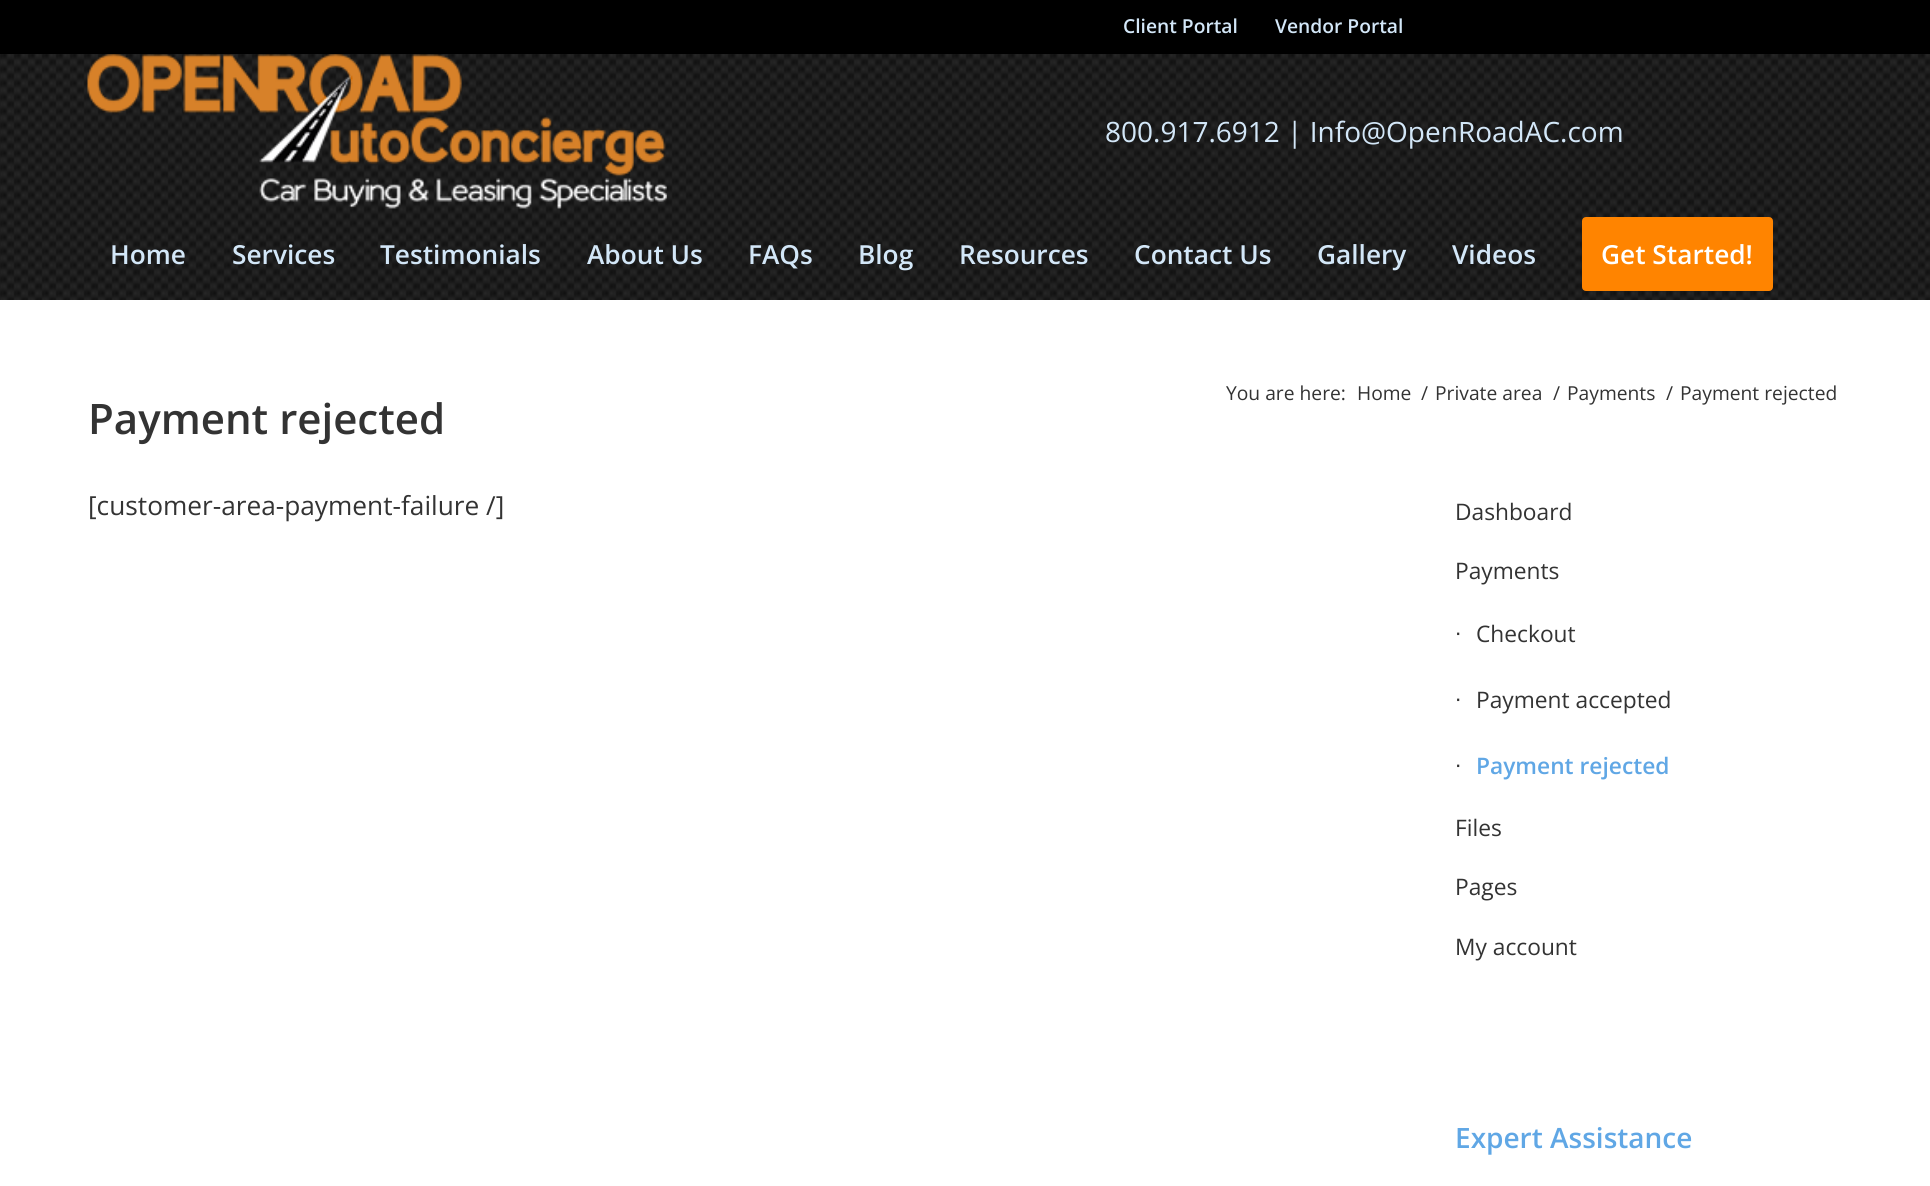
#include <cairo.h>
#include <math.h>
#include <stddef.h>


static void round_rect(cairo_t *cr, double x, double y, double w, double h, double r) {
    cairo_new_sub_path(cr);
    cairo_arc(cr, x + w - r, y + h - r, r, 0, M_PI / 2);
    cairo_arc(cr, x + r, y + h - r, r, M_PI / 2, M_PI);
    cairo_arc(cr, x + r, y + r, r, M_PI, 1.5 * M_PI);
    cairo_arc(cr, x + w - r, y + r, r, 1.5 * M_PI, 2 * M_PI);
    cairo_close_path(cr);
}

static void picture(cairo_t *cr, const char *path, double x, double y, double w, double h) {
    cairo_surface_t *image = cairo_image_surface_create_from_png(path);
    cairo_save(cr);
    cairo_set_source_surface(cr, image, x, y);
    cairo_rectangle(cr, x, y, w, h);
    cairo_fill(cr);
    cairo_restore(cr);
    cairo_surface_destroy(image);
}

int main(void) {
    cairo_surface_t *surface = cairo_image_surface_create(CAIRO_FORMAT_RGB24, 1930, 1186);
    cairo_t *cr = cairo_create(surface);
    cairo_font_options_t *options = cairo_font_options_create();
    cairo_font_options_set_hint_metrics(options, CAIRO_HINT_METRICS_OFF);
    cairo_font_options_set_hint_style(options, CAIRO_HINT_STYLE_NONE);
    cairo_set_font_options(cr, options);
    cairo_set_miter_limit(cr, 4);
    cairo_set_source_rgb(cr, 1, 1, 1);
    cairo_paint(cr);
    cairo_set_source_rgb(cr, 0, 0, 0);
    cairo_rectangle(cr, 0, 0, 1930, 54);
    cairo_fill(cr);
    cairo_select_font_face(cr, "Open Sans SemiBold", CAIRO_FONT_SLANT_NORMAL, CAIRO_FONT_WEIGHT_NORMAL);
    cairo_set_font_size(cr, 19.25);
    cairo_set_source_rgb(cr, 0.827, 0.906, 0.969);
    cairo_move_to(cr, 1123, 33);
    cairo_show_text(cr, "Client Portal");
    cairo_move_to(cr, 1275, 33);
    cairo_show_text(cr, "Vendor Portal");
    picture(cr, "img1.png", 0, 54, 1930, 246);
    picture(cr, "img2.png", 87, 54, 580, 155);
    cairo_select_font_face(cr, "Open Sans", CAIRO_FONT_SLANT_NORMAL, CAIRO_FONT_WEIGHT_NORMAL);
    cairo_set_font_size(cr, 28);
    cairo_move_to(cr, 1105, 142);
    cairo_show_text(cr, "800.917.6912 | Info@OpenRoadAC.com");
    cairo_select_font_face(cr, "Open Sans SemiBold", CAIRO_FONT_SLANT_NORMAL, CAIRO_FONT_WEIGHT_NORMAL);
    cairo_set_font_size(cr, 26.25);
    cairo_move_to(cr, 110, 264);
    cairo_show_text(cr, "Home");
    cairo_move_to(cr, 232, 264);
    cairo_show_text(cr, "Services");
    cairo_move_to(cr, 380, 264);
    cairo_show_text(cr, "Testimonials");
    cairo_move_to(cr, 587, 264);
    cairo_show_text(cr, "About Us");
    cairo_move_to(cr, 748, 264);
    cairo_show_text(cr, "FAQs");
    cairo_move_to(cr, 858, 264);
    cairo_show_text(cr, "Blog");
    cairo_move_to(cr, 959, 264);
    cairo_show_text(cr, "Resources");
    cairo_move_to(cr, 1134, 264);
    cairo_show_text(cr, "Contact Us");
    cairo_move_to(cr, 1317, 264);
    cairo_show_text(cr, "Gallery");
    cairo_move_to(cr, 1452, 264);
    cairo_show_text(cr, "Videos");
    cairo_set_source_rgb(cr, 1, 0.518, 0);
    round_rect(cr, 1584, 219, 187, 70, 2);
    cairo_fill_preserve(cr);
    cairo_set_line_width(cr, 4);
    cairo_stroke(cr);
    cairo_set_source_rgb(cr, 1, 1, 1);
    cairo_move_to(cr, 1601, 264);
    cairo_show_text(cr, "Get Started!");
    cairo_select_font_face(cr, "Open Sans", CAIRO_FONT_SLANT_NORMAL, CAIRO_FONT_WEIGHT_NORMAL);
    cairo_set_font_size(cr, 19.25);
    cairo_set_source_rgb(cr, 0.2, 0.2, 0.2);
    cairo_move_to(cr, 1226, 400);
    cairo_show_text(cr, "You are here:");
    cairo_move_to(cr, 1357, 400);
    cairo_show_text(cr, "Home");
    cairo_move_to(cr, 1421, 400);
    cairo_show_text(cr, "/");
    cairo_move_to(cr, 1435, 400);
    cairo_show_text(cr, "Private area");
    cairo_move_to(cr, 1553, 400);
    cairo_show_text(cr, "/");
    cairo_move_to(cr, 1567, 400);
    cairo_show_text(cr, "Payments");
    cairo_move_to(cr, 1666, 400);
    cairo_show_text(cr, "/");
    cairo_move_to(cr, 1680, 400);
    cairo_show_text(cr, "Payment rejected");
    cairo_select_font_face(cr, "Open Sans SemiBold", CAIRO_FONT_SLANT_NORMAL, CAIRO_FONT_WEIGHT_NORMAL);
    cairo_set_font_size(cr, 42);
    cairo_move_to(cr, 88, 434);
    cairo_show_text(cr, "Payment rejected");
    cairo_select_font_face(cr, "Open Sans", CAIRO_FONT_SLANT_NORMAL, CAIRO_FONT_WEIGHT_NORMAL);
    cairo_set_font_size(cr, 26.25);
    cairo_move_to(cr, 88, 515);
    cairo_show_text(cr, "[customer-area-payment-failure /]");
    cairo_set_font_size(cr, 22.75);
    cairo_move_to(cr, 1455, 520);
    cairo_show_text(cr, "Dashboard");
    cairo_move_to(cr, 1455, 579);
    cairo_show_text(cr, "Payments");
    cairo_select_font_face(cr, "Liberation Sans", CAIRO_FONT_SLANT_NORMAL, CAIRO_FONT_WEIGHT_NORMAL);
    cairo_move_to(cr, 1455, 640);
    cairo_show_text(cr, "∙");
    cairo_select_font_face(cr, "Open Sans", CAIRO_FONT_SLANT_NORMAL, CAIRO_FONT_WEIGHT_NORMAL);
    cairo_move_to(cr, 1476, 642);
    cairo_show_text(cr, "Checkout");
    cairo_select_font_face(cr, "Liberation Sans", CAIRO_FONT_SLANT_NORMAL, CAIRO_FONT_WEIGHT_NORMAL);
    cairo_move_to(cr, 1455, 706);
    cairo_show_text(cr, "∙");
    cairo_select_font_face(cr, "Open Sans", CAIRO_FONT_SLANT_NORMAL, CAIRO_FONT_WEIGHT_NORMAL);
    cairo_move_to(cr, 1476, 708);
    cairo_show_text(cr, "Payment accepted");
    cairo_select_font_face(cr, "Liberation Sans", CAIRO_FONT_SLANT_NORMAL, CAIRO_FONT_WEIGHT_NORMAL);
    cairo_move_to(cr, 1455, 772);
    cairo_show_text(cr, "∙");
    cairo_select_font_face(cr, "Open Sans SemiBold", CAIRO_FONT_SLANT_NORMAL, CAIRO_FONT_WEIGHT_NORMAL);
    cairo_set_source_rgb(cr, 0.376, 0.655, 0.898);
    cairo_move_to(cr, 1476, 774);
    cairo_show_text(cr, "Payment rejected");
    cairo_select_font_face(cr, "Open Sans", CAIRO_FONT_SLANT_NORMAL, CAIRO_FONT_WEIGHT_NORMAL);
    cairo_set_source_rgb(cr, 0.2, 0.2, 0.2);
    cairo_move_to(cr, 1455, 836);
    cairo_show_text(cr, "Files");
    cairo_move_to(cr, 1455, 895);
    cairo_show_text(cr, "Pages");
    cairo_move_to(cr, 1455, 955);
    cairo_show_text(cr, "My account");
    cairo_select_font_face(cr, "Open Sans SemiBold", CAIRO_FONT_SLANT_NORMAL, CAIRO_FONT_WEIGHT_NORMAL);
    cairo_set_font_size(cr, 28);
    cairo_set_source_rgb(cr, 0.376, 0.655, 0.898);
    cairo_move_to(cr, 1455, 1148);
    cairo_show_text(cr, "Expert Assistance");
    cairo_surface_write_to_png(surface, "page.png");
    cairo_font_options_destroy(options);
    cairo_destroy(cr);
    cairo_surface_destroy(surface);
    return 0;
}
